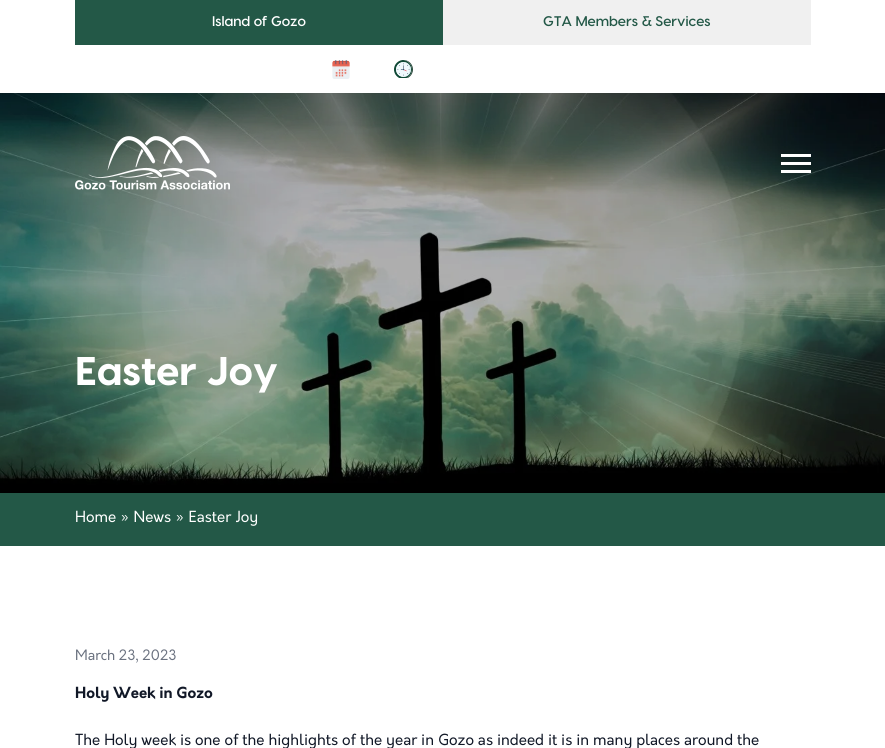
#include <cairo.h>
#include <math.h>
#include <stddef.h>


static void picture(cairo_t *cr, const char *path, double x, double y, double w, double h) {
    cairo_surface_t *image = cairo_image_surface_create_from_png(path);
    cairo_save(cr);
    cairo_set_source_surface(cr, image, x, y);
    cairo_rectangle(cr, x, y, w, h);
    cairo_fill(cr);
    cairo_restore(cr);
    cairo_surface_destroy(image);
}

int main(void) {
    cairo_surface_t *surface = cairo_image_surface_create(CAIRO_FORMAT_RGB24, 885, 748);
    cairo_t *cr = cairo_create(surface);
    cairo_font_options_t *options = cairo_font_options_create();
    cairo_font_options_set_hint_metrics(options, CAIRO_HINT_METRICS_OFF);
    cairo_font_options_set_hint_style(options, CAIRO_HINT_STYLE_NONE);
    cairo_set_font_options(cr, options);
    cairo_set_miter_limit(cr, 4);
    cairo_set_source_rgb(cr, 1, 1, 1);
    cairo_paint(cr);
    cairo_set_source_rgb(cr, 0.137, 0.345, 0.278);
    cairo_rectangle(cr, 75, 0, 368, 45);
    cairo_fill(cr);
    cairo_select_font_face(cr, "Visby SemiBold", CAIRO_FONT_SLANT_NORMAL, CAIRO_FONT_WEIGHT_NORMAL);
    cairo_set_font_size(cr, 14);
    cairo_set_source_rgb(cr, 1, 1, 1);
    cairo_move_to(cr, 212, 26);
    cairo_show_text(cr, "Island of Gozo");
    cairo_set_source_rgb(cr, 0.941, 0.941, 0.941);
    cairo_rectangle(cr, 443, 0, 368, 45);
    cairo_fill(cr);
    cairo_set_source_rgb(cr, 0.137, 0.345, 0.278);
    cairo_move_to(cr, 543, 26);
    cairo_show_text(cr, "GTA Members & Services");
    picture(cr, "img1.png", 332, 60, 18, 19);
    picture(cr, "img2.png", 394, 60, 19, 18);
    picture(cr, "img4.png", 0, 93, 885, 400);
    picture(cr, "img3.png", 75, 136, 155, 54);
    cairo_set_source_rgb(cr, 1, 1, 1);
    cairo_rectangle(cr, 781, 154, 30, 3);
    cairo_fill(cr);
    cairo_rectangle(cr, 781, 162, 30, 3);
    cairo_fill(cr);
    cairo_rectangle(cr, 781, 170, 30, 3);
    cairo_fill(cr);
    cairo_select_font_face(cr, "Visby ExtraBold", CAIRO_FONT_SLANT_NORMAL, CAIRO_FONT_WEIGHT_NORMAL);
    cairo_set_font_size(cr, 40);
    cairo_move_to(cr, 75, 385);
    cairo_show_text(cr, "Easter Joy");
    cairo_set_source_rgb(cr, 0.137, 0.345, 0.278);
    cairo_rectangle(cr, 0, 493, 885, 53);
    cairo_fill(cr);
    cairo_select_font_face(cr, "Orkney", CAIRO_FONT_SLANT_NORMAL, CAIRO_FONT_WEIGHT_NORMAL);
    cairo_set_font_size(cr, 15);
    cairo_set_source_rgb(cr, 1, 1, 1);
    cairo_move_to(cr, 75, 522);
    cairo_show_text(cr, "Home » News » Easter Joy");
    cairo_set_font_size(cr, 14);
    cairo_set_source_rgb(cr, 0.42, 0.447, 0.502);
    cairo_move_to(cr, 75, 660);
    cairo_show_text(cr, "March 23, 2023");
    cairo_select_font_face(cr, "Orkney", CAIRO_FONT_SLANT_NORMAL, CAIRO_FONT_WEIGHT_BOLD);
    cairo_set_font_size(cr, 15);
    cairo_set_source_rgb(cr, 0.067, 0.094, 0.153);
    cairo_move_to(cr, 75, 698);
    cairo_show_text(cr, "Holy Week in Gozo");
    cairo_select_font_face(cr, "Orkney", CAIRO_FONT_SLANT_NORMAL, CAIRO_FONT_WEIGHT_NORMAL);
    cairo_move_to(cr, 75, 745);
    cairo_show_text(cr, "The Holy week is one of the highlights of the year in Gozo as indeed it is in many places around the");
    cairo_surface_write_to_png(surface, "page.png");
    cairo_font_options_destroy(options);
    cairo_destroy(cr);
    cairo_surface_destroy(surface);
    return 0;
}
